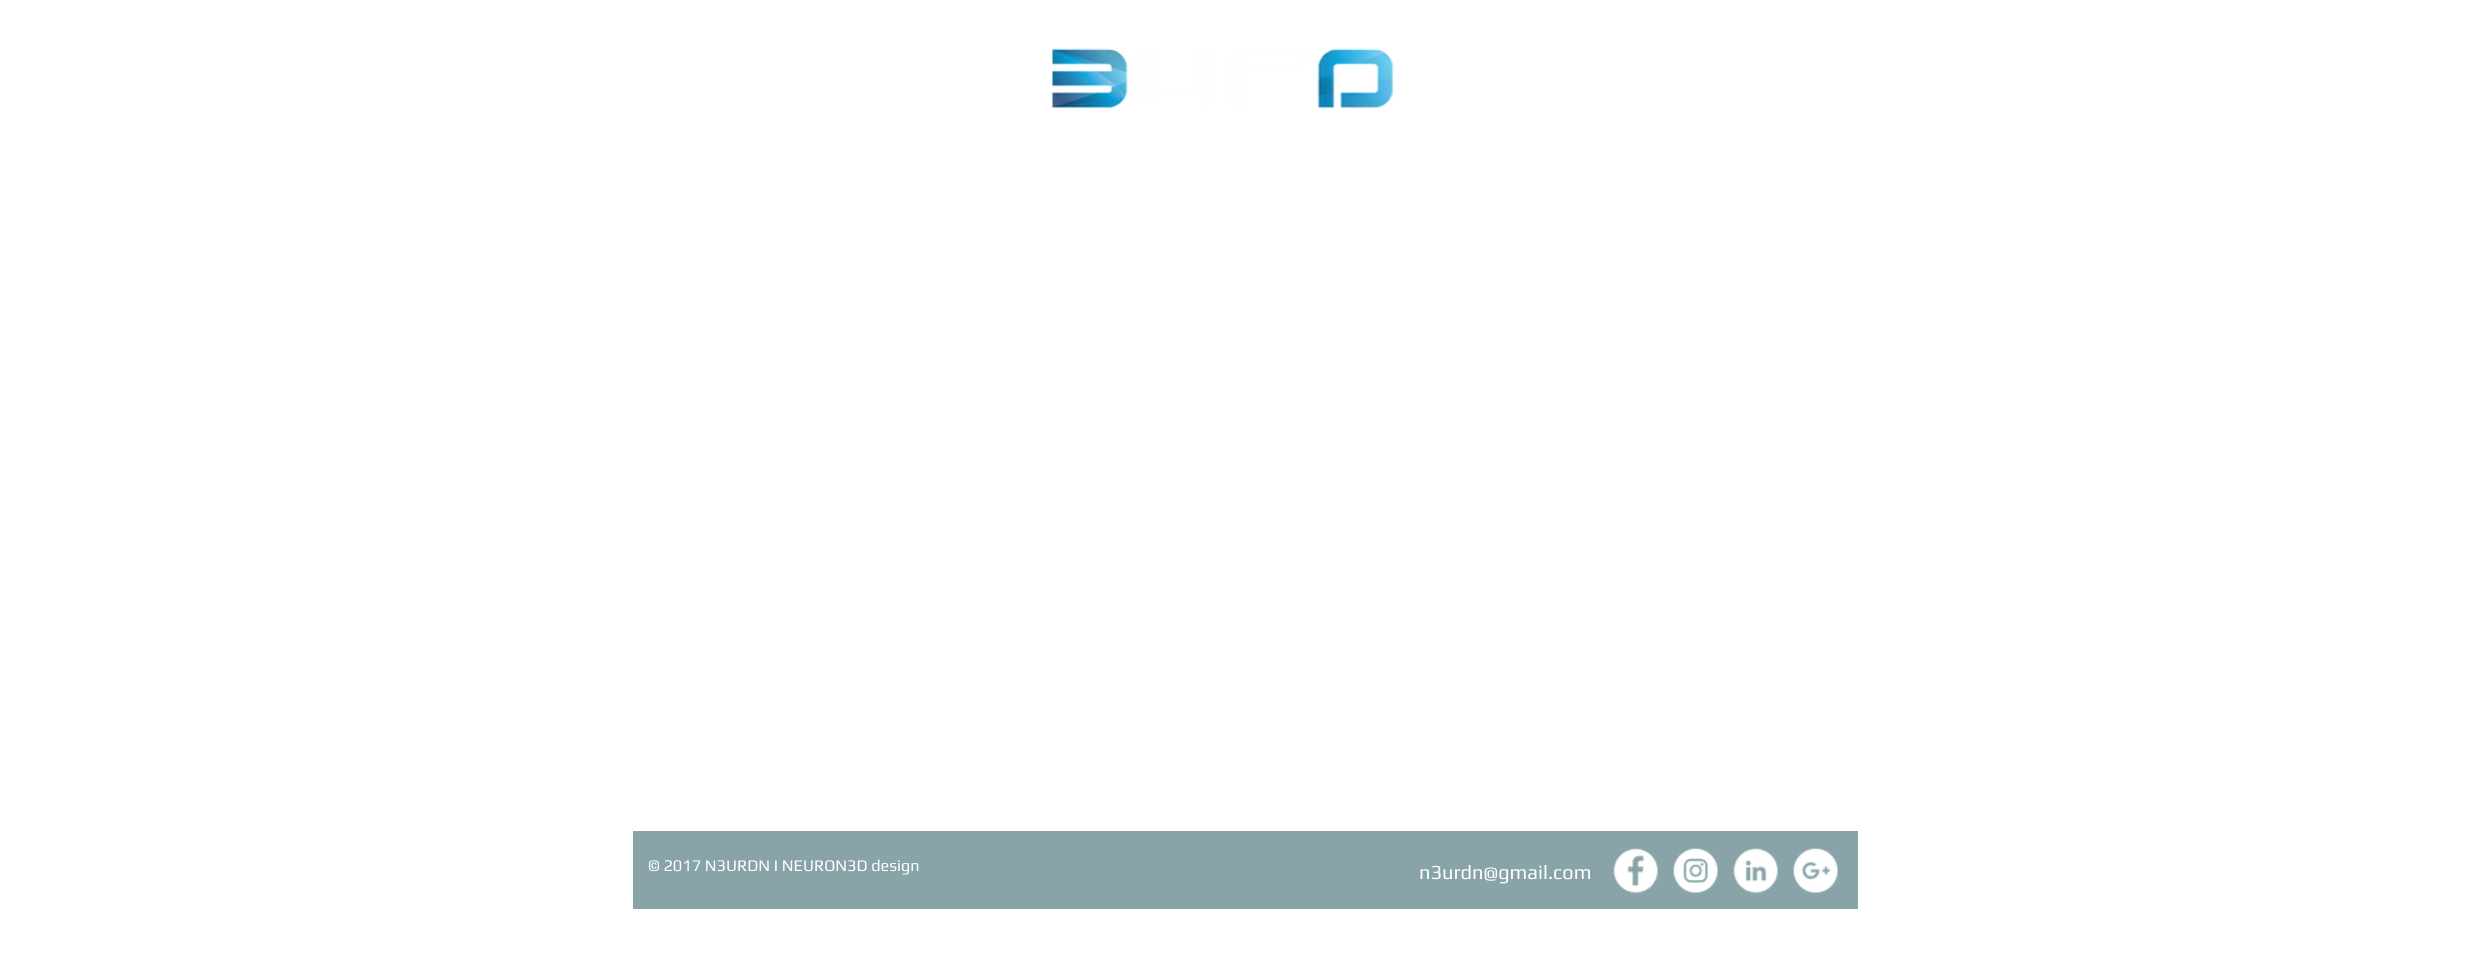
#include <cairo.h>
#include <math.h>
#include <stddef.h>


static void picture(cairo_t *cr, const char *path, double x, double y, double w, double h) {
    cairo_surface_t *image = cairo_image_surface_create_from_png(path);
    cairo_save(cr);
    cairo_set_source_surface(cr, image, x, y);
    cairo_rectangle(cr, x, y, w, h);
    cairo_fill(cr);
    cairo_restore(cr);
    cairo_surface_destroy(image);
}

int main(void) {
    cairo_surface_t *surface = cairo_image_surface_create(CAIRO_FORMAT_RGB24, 2488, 980);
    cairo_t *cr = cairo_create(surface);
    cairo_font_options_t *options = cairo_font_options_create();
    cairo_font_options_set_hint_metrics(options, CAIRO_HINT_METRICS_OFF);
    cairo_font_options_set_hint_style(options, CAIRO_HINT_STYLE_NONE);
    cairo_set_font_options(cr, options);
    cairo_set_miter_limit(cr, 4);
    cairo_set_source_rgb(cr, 1, 1, 1);
    cairo_paint(cr);
    picture(cr, "img1.png", 1051, 48, 343, 61);
    cairo_set_source_rgb(cr, 0.533, 0.643, 0.659);
    cairo_rectangle(cr, 633, 831, 1225, 78);
    cairo_fill(cr);
    cairo_select_font_face(cr, "Play", CAIRO_FONT_SLANT_NORMAL, CAIRO_FONT_WEIGHT_NORMAL);
    cairo_set_font_size(cr, 16.25);
    cairo_set_source_rgb(cr, 1, 1, 1);
    cairo_move_to(cr, 648, 871);
    cairo_show_text(cr, "© 2017 N3URDN I NEURON3D design");
    cairo_set_font_size(cr, 20);
    cairo_move_to(cr, 1419, 879);
    cairo_show_text(cr, "n3urdn@gmail.com");
    picture(cr, "img2.png", 1613, 848, 45, 45);
    picture(cr, "img3.png", 1673, 848, 45, 45);
    picture(cr, "img4.png", 1733, 848, 45, 45);
    picture(cr, "img5.png", 1793, 848, 45, 45);
    cairo_surface_write_to_png(surface, "page.png");
    cairo_font_options_destroy(options);
    cairo_destroy(cr);
    cairo_surface_destroy(surface);
    return 0;
}
